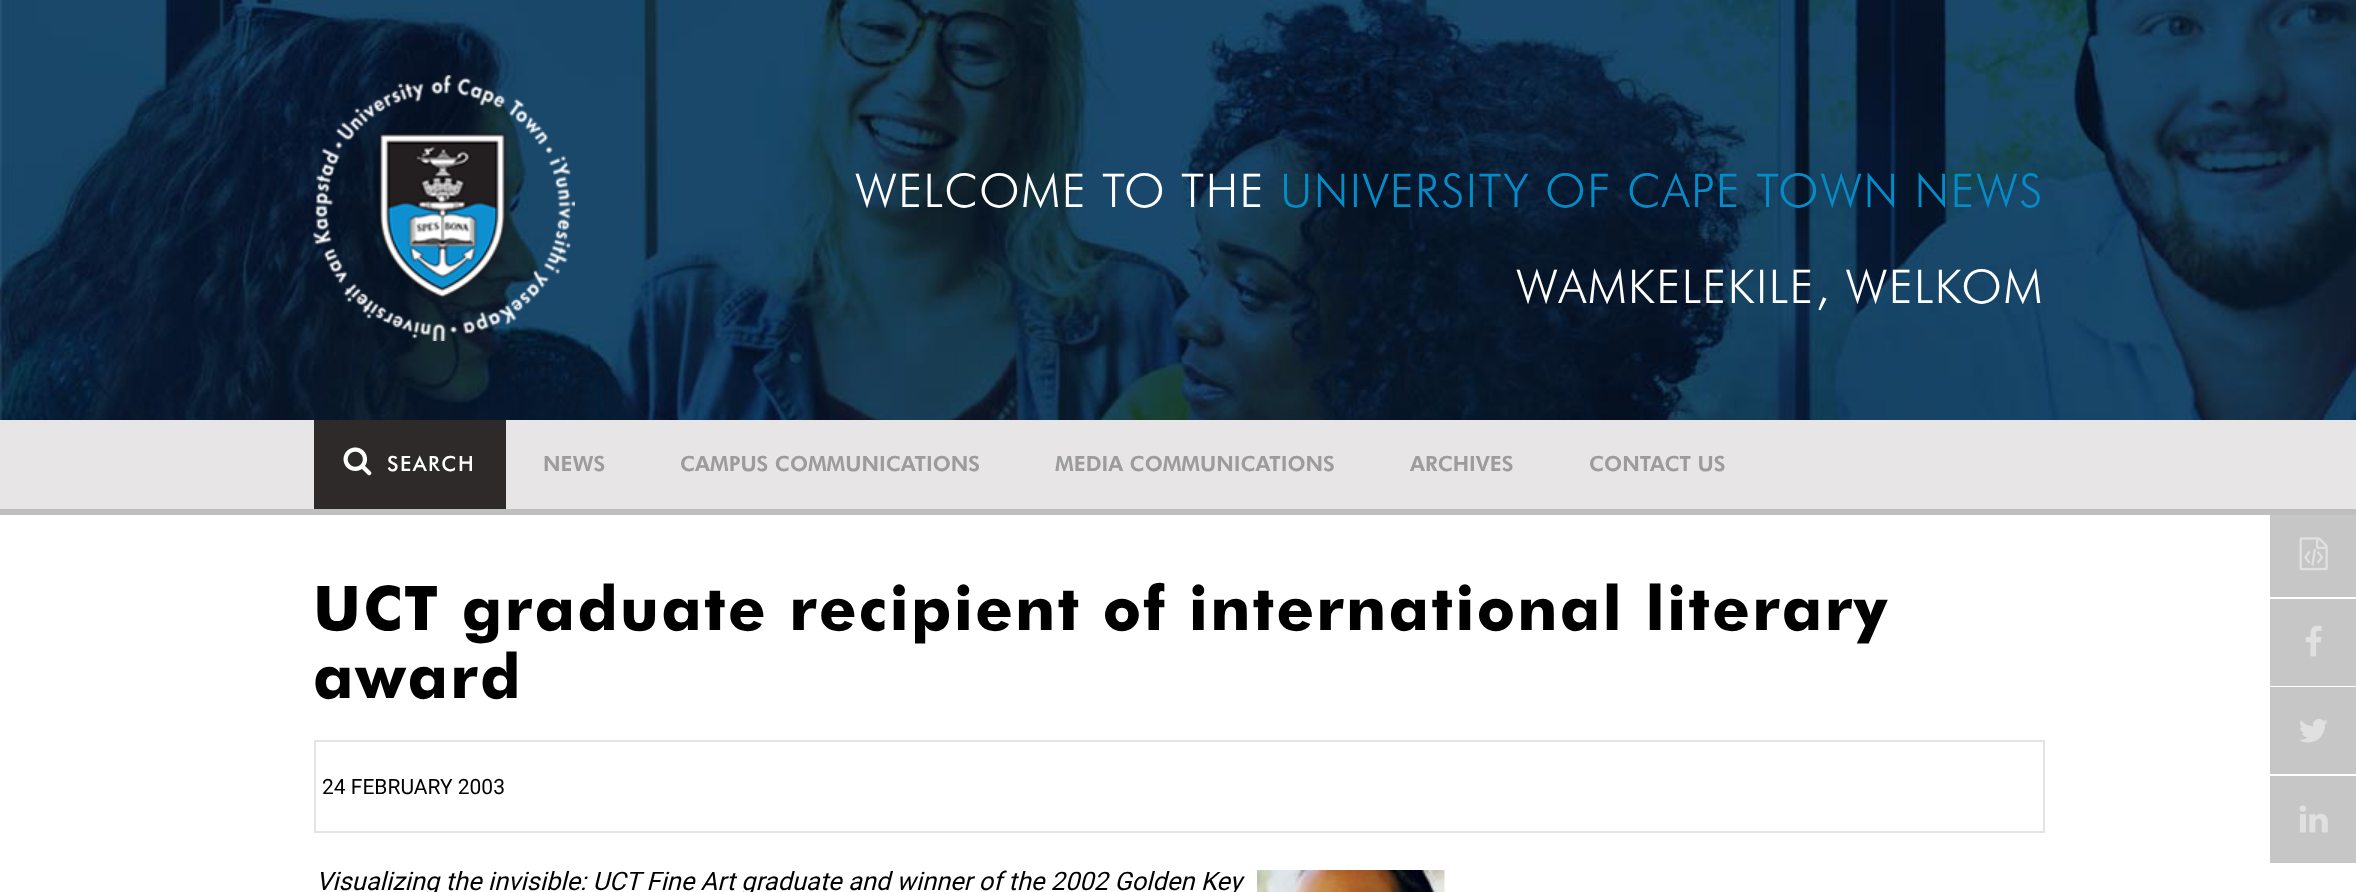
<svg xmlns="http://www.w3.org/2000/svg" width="2356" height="892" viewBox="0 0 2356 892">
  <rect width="100%" height="100%" fill="rgb(255,255,255)"/>
  <image x="0" y="0" width="2356" height="420" href="pic1.png"/>
  <image x="313" y="75" width="262" height="266" href="pic2.png"/>
  <text x="855" y="207" font-family="Futura" font-size="46.5" font-weight="300" letter-spacing="1.5" fill="rgb(255,255,255)">WELCOME TO THE</text>
  <text x="1280" y="207" font-family="Futura" font-size="46.5" font-weight="300" letter-spacing="1.5" fill="rgb(6,139,198)">UNIVERSITY OF CAPE TOWN NEWS</text>
  <text x="1516" y="303" font-family="Futura" font-size="46.5" font-weight="300" letter-spacing="1.5" fill="rgb(255,255,255)">WAMKELEKILE, WELKOM</text>
  <rect x="0" y="420" width="2356" height="89" fill="rgb(231,229,229)"/>
  <rect x="314" y="420" width="192" height="89" fill="rgb(46,42,42)"/>
  <image x="343" y="447" width="29" height="29" href="pic3.png"/>
  <text x="387" y="471" font-family="Futura" font-size="21" font-weight="500" letter-spacing="1.5" fill="rgb(255,255,255)">SEARCH</text>
  <g font-family="Futura" font-size="21" font-weight="900" fill="rgb(156,156,156)">
    <text x="543" y="471">NEWS</text>
    <text x="680" y="471">CAMPUS COMMUNICATIONS</text>
    <text x="1055" y="471">MEDIA COMMUNICATIONS</text>
    <text x="1410" y="471">ARCHIVES</text>
    <text x="1589" y="471">CONTACT US</text>
  </g>
  <rect x="0" y="509" width="2356" height="6" fill="rgb(191,191,191)"/>
  <g font-family="Futura" font-size="61.5" font-weight="bold" letter-spacing="2.25" fill="rgb(0,0,0)">
    <text>
      <tspan x="313" y="630">UCT graduate recipient of international literary</tspan>
      <tspan x="313" y="698">award</tspan>
    </text>
  </g>
  <rect x="315" y="741" width="1729" height="91" fill="none" stroke="rgb(228,228,228)" stroke-width="2"/>
  <text x="322" y="794" font-family="Roboto" font-size="21" fill="rgb(0,0,0)">24 FEBRUARY 2003</text>
  <text x="316" y="890" font-family="Roboto" font-size="25.5" font-style="italic" fill="rgb(0,0,0)">Visualizing the invisible: UCT Fine Art graduate and winner of the 2002 Golden Key</text>
  <image x="1257" y="870" width="188" height="22" href="pic4.png"/>
  <rect x="2270" y="515" width="86" height="82" fill="rgb(198,198,198)"/>
  <image x="2299" y="537" width="29" height="34" href="pic5.png"/>
  <rect x="2270" y="599" width="86" height="87" fill="rgb(198,198,198)"/>
  <image x="2305" y="625" width="17" height="32" href="pic6.png"/>
  <rect x="2270" y="687" width="86" height="87" fill="rgb(198,198,198)"/>
  <image x="2299" y="719" width="29" height="24" href="pic7.png"/>
  <rect x="2270" y="776" width="86" height="87" fill="rgb(198,198,198)"/>
  <image x="2299" y="805" width="29" height="28" href="pic8.png"/>
</svg>
